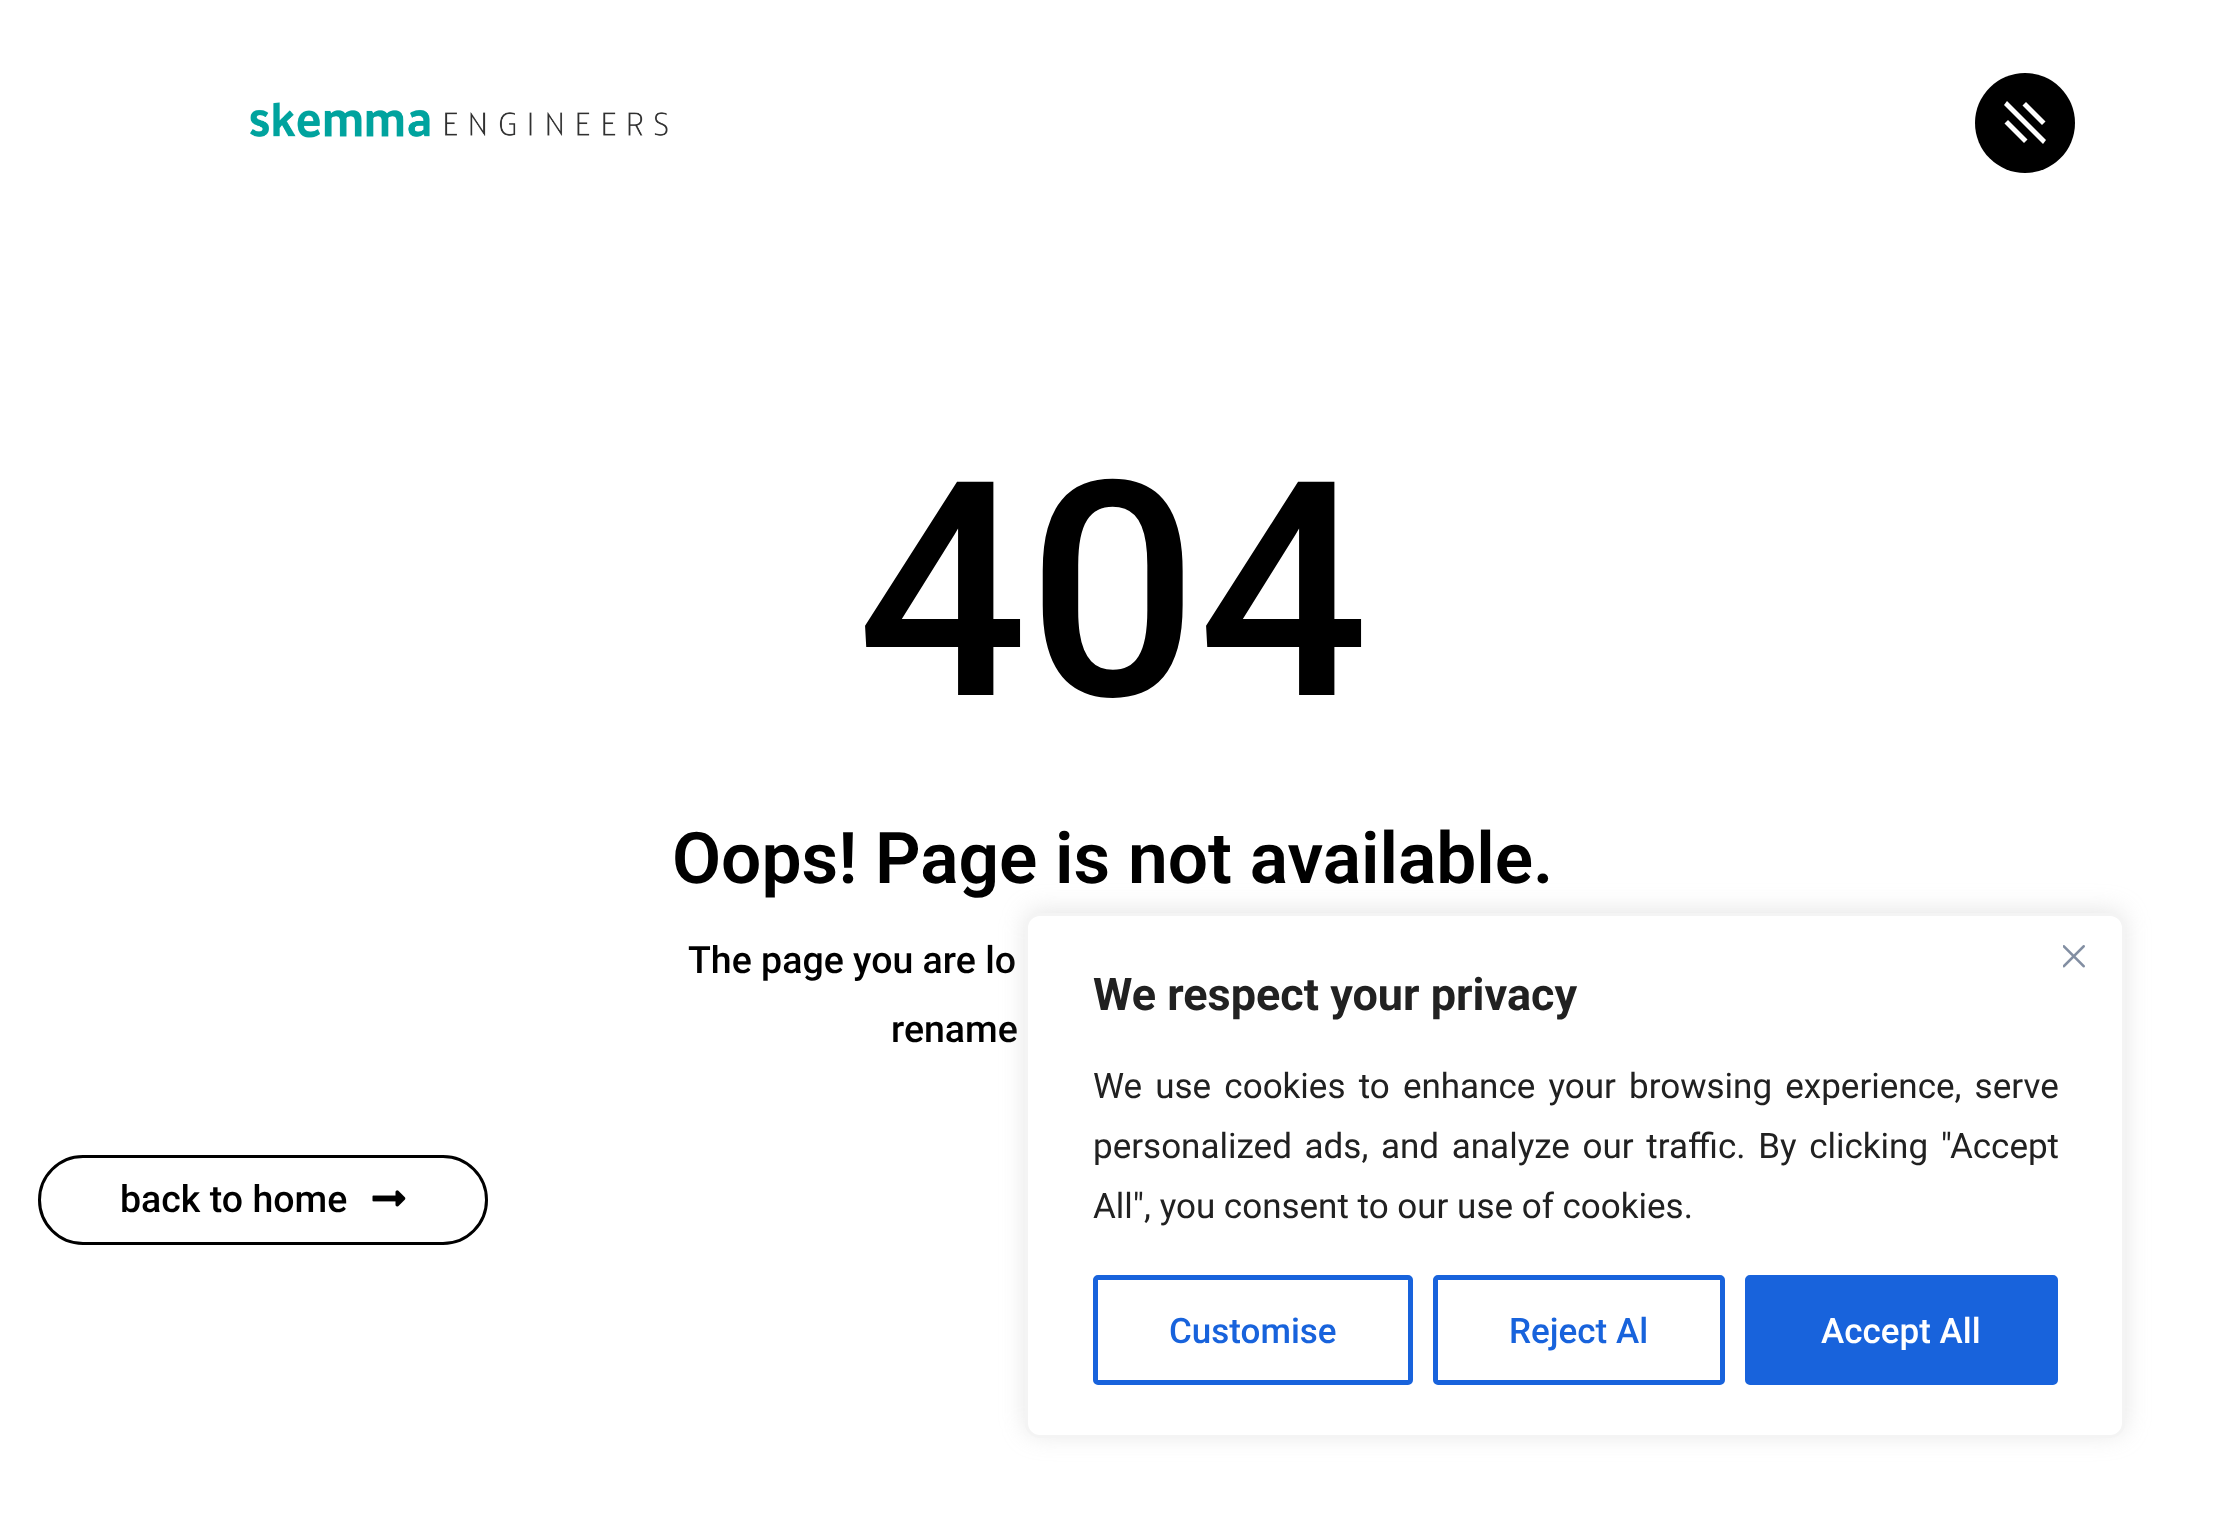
<svg xmlns="http://www.w3.org/2000/svg" width="2225" height="1537" viewBox="0 0 2225 1537">
  <rect width="100%" height="100%" fill="rgb(255,255,255)"/>
  <image x="250" y="102" width="418" height="36" href="pic1.png"/>
  <circle cx="2025" cy="123" r="50" fill="rgb(0,0,0)"/>
  <path d="M2026 102L2045.5 121.5L2042 125L2022.5 105.5Z" fill="rgb(255,255,255)"/>
  <path d="M2007 101L2046 140L2043 144L2004 105Z" fill="rgb(255,255,255)"/>
  <path d="M2008 120L2027.5 139.5L2024 143L2004.5 123.5Z" fill="rgb(255,255,255)"/>
  <text x="857" y="695" font-family="Roboto" font-size="300" font-weight="500" fill="rgb(0,0,0)">404</text>
  <text x="672" y="883" font-family="Roboto" font-size="71.25" font-weight="600" fill="rgb(0,0,0)">Oops! Page is not available.</text>
  <g font-family="Roboto" font-size="37.5" font-weight="500" fill="rgb(0,0,0)">
    <text x="688" y="973">The page you are lo</text>
    <text x="891" y="1042">rename</text>
  </g>
  <rect x="39.5" y="1156.5" width="447" height="87" rx="43.5" fill="none" stroke="rgb(0,0,0)" stroke-width="3"/>
  <text x="120" y="1212" font-family="Roboto" font-size="37.5" font-weight="500" fill="rgb(0,0,0)">back to home</text>
  <image x="372" y="1190" width="34" height="17" href="pic2.png"/>
  <rect x="1025" y="910" width="1100" height="525" rx="15" fill="rgba(172,171,171,0.3)" filter="blur(12.5px)"/>
  <rect x="1026.5" y="914.5" width="1097" height="522" rx="13.5" fill="rgb(255,255,255)" stroke="rgb(244,244,244)" stroke-width="3"/>
  <image x="2063" y="945" width="22" height="23" href="pic3.png"/>
  <text x="1093" y="1010" font-family="Roboto" font-size="45" font-weight="bold" fill="rgb(33,33,33)">We respect your privacy</text>
  <g font-family="Roboto" font-size="35" fill="rgb(33,33,33)">
    <text>
      <tspan x="1093" y="1098" word-spacing="4.5">We use cookies to enhance your browsing experience, serve</tspan>
      <tspan x="1093" y="1158" word-spacing="4">personalized ads, and analyze our traffic. By clicking "Accept</tspan>
      <tspan x="1093" y="1218">All", you consent to our use of cookies.</tspan>
    </text>
  </g>
  <rect x="1095.5" y="1277.5" width="315" height="105" rx="2.5" fill="none" stroke="rgb(24,99,220)" stroke-width="5"/>
  <text x="1169" y="1343" font-family="Roboto" font-size="35" font-weight="500" fill="rgb(24,99,220)">Customise</text>
  <rect x="1435.5" y="1277.5" width="287" height="105" rx="2.5" fill="none" stroke="rgb(24,99,220)" stroke-width="5"/>
  <text x="1509" y="1343" font-family="Roboto" font-size="35" font-weight="500" fill="rgb(24,99,220)">Reject Al</text>
  <rect x="1747.5" y="1277.5" width="308" height="105" rx="2.5" fill="rgb(24,99,220)" stroke="rgb(24,99,220)" stroke-width="5"/>
  <text x="1821" y="1343" font-family="Roboto" font-size="35" font-weight="500" fill="rgb(255,255,255)">Accept All</text>
</svg>
